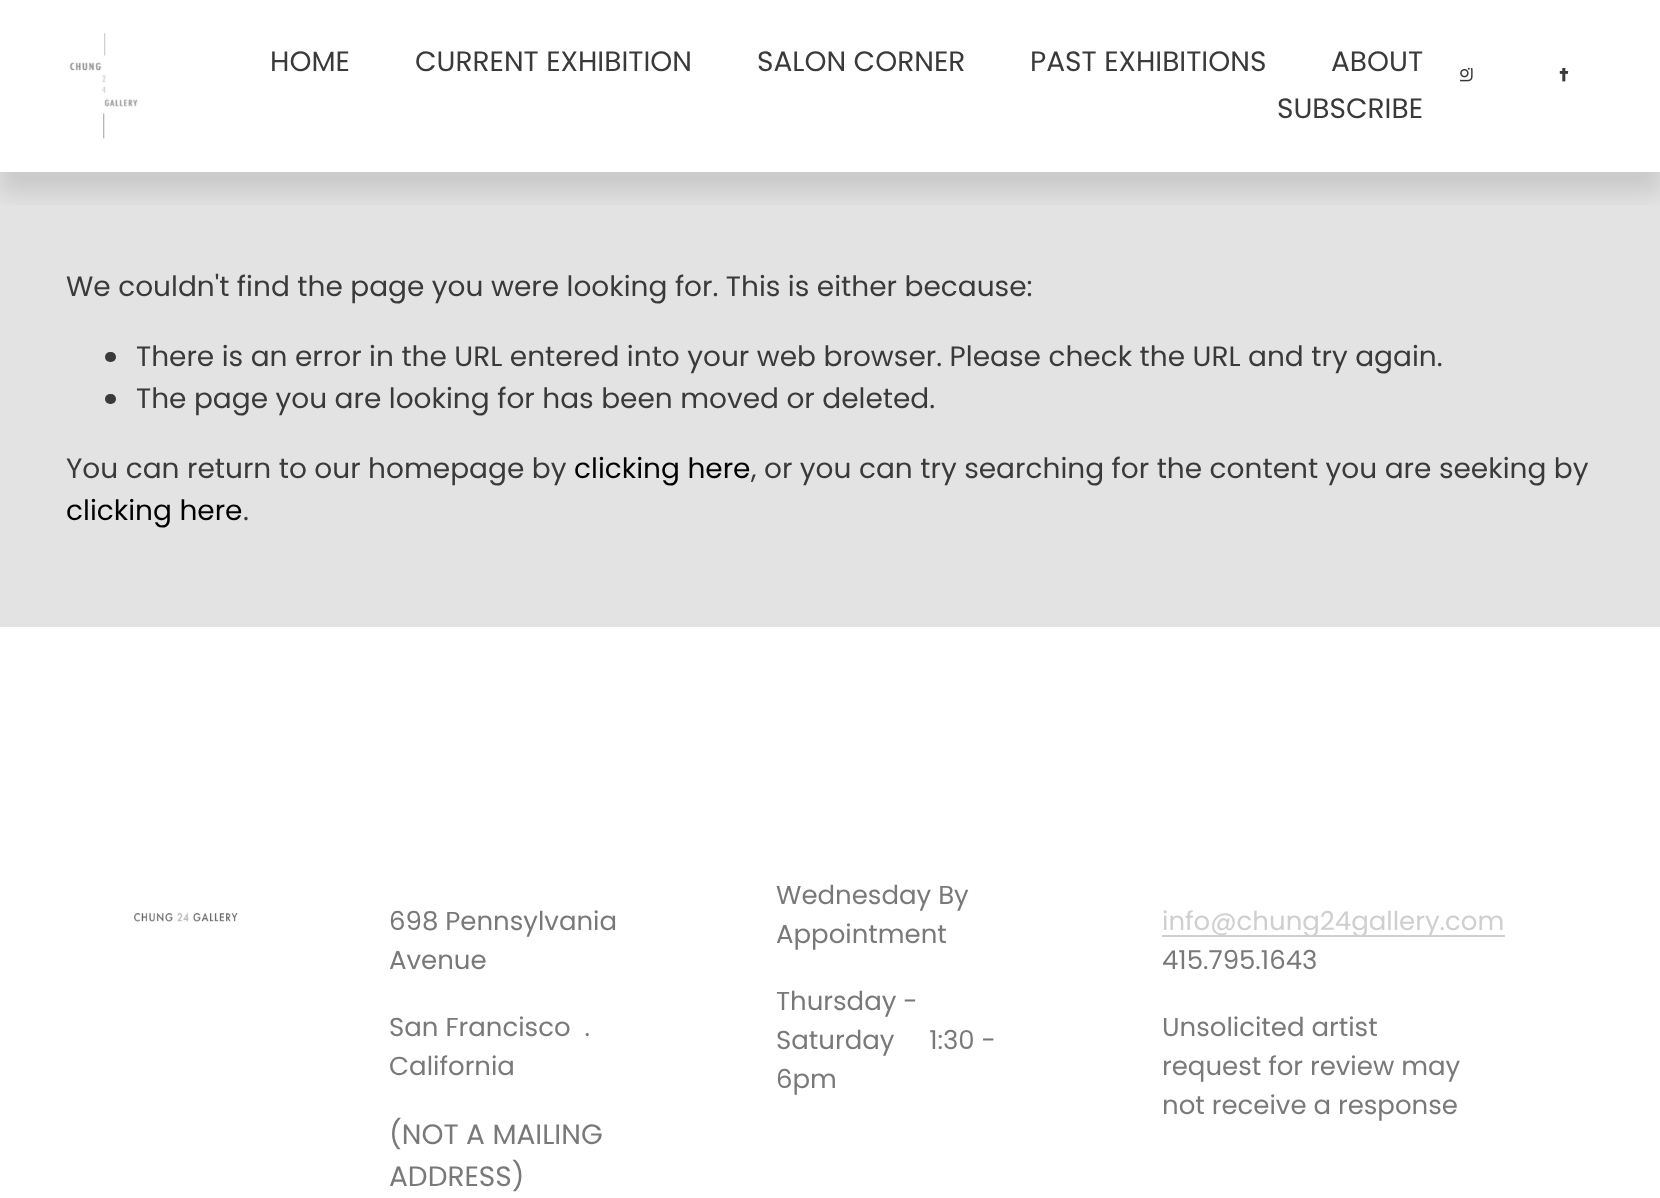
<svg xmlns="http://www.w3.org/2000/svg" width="1660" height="1198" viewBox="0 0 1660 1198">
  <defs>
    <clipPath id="clip1"><rect x="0" y="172" width="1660" height="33"/></clipPath>
  </defs>
  <rect width="100%" height="100%" fill="rgb(227,227,227)"/>
  <rect x="2" y="2" width="1657" height="168" fill="rgb(255,255,255)"/>
  <g clip-path="url(#clip1)">
    <rect x="0" y="21" width="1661" height="172" fill="rgba(58,58,58,0.15)" filter="blur(10.5px)"/>
  </g>
  <rect x="1" y="1" width="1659" height="170" fill="none" stroke="rgb(255,255,255)" stroke-width="2"/>
  <image x="69" y="33" width="69" height="106" href="pic1.png"/>
  <g font-family="Poppins" font-size="28" fill="rgb(58,58,58)">
    <text x="270" y="71">HOME</text>
    <text x="415" y="71">CURRENT EXHIBITION</text>
    <text x="757" y="71">SALON CORNER</text>
    <text x="1030" y="71">PAST EXHIBITIONS</text>
    <text x="1331" y="71">ABOUT</text>
    <text x="1277" y="118">SUBSCRIBE</text>
  </g>
  <image x="1460" y="68" width="13" height="14" href="pic2.png"/>
  <image x="1559" y="68" width="10" height="14" href="pic3.png"/>
  <text x="66" y="296" font-family="Poppins" font-size="28" fill="rgb(58,58,58)">We couldn't find the page you were looking for. This is either because:</text>
  <rect x="105" y="352" width="11" height="10" rx="5" fill="rgb(58,58,58)"/>
  <text x="136" y="366" font-family="Poppins" font-size="28" fill="rgb(58,58,58)">There is an error in the URL entered into your web browser. Please check the URL and try again.</text>
  <rect x="105" y="394" width="11" height="10" rx="5" fill="rgb(58,58,58)"/>
  <g font-family="Poppins" font-size="28" fill="rgb(58,58,58)">
    <text x="136" y="408">The page you are looking for has been moved or deleted.</text>
    <text x="66" y="478">You can return to our homepage by</text>
  </g>
  <text x="574" y="478" font-family="Poppins" font-size="28" fill="rgb(0,0,0)">clicking here</text>
  <text x="751" y="478" font-family="Poppins" font-size="28" fill="rgb(58,58,58)">, or you can try searching for the content you are seeking by</text>
  <text x="66" y="520" font-family="Poppins" font-size="28" fill="rgb(0,0,0)">clicking here</text>
  <text x="243" y="520" font-family="Poppins" font-size="28" fill="rgb(58,58,58)">.</text>
  <rect x="0" y="627" width="1660" height="571" fill="rgb(255,255,255)"/>
  <image x="134" y="912" width="104" height="10" href="pic4.png"/>
  <g font-family="Poppins" font-size="26" fill="rgb(121,121,121)">
    <text>
      <tspan x="389" y="930">698 Pennsylvania</tspan>
      <tspan x="389" y="969">Avenue</tspan>
    </text>
    <text xml:space="preserve"><tspan x="389" y="1036">San Francisco  .</tspan><tspan x="389" y="1075">California</tspan></text>
  </g>
  <g font-family="Poppins" font-size="28" fill="rgb(121,121,121)">
    <text>
      <tspan x="389" y="1144">(NOT A MAILING</tspan>
      <tspan x="389" y="1186">ADDRESS)</tspan>
    </text>
  </g>
  <g font-family="Poppins" font-size="26" fill="rgb(121,121,121)">
    <text>
      <tspan x="776" y="904">Wednesday By</tspan>
      <tspan x="776" y="943">Appointment</tspan>
    </text>
    <text xml:space="preserve"><tspan x="776" y="1010">Thursday -</tspan><tspan x="776" y="1049">Saturday     1:30 -</tspan><tspan x="776" y="1088">6pm</tspan></text>
  </g>
  <rect x="1162" y="935" width="343" height="2" fill="rgb(207,207,207)"/>
  <text x="1162" y="930" font-family="Poppins" font-size="26" fill="rgb(207,207,207)">info@chung24gallery.com</text>
  <g font-family="Poppins" font-size="26" fill="rgb(121,121,121)">
    <text x="1162" y="969">415.795.1643</text>
    <text>
      <tspan x="1162" y="1036">Unsolicited artist</tspan>
      <tspan x="1162" y="1075">request for review may</tspan>
      <tspan x="1162" y="1114">not receive a response</tspan>
    </text>
  </g>
</svg>
